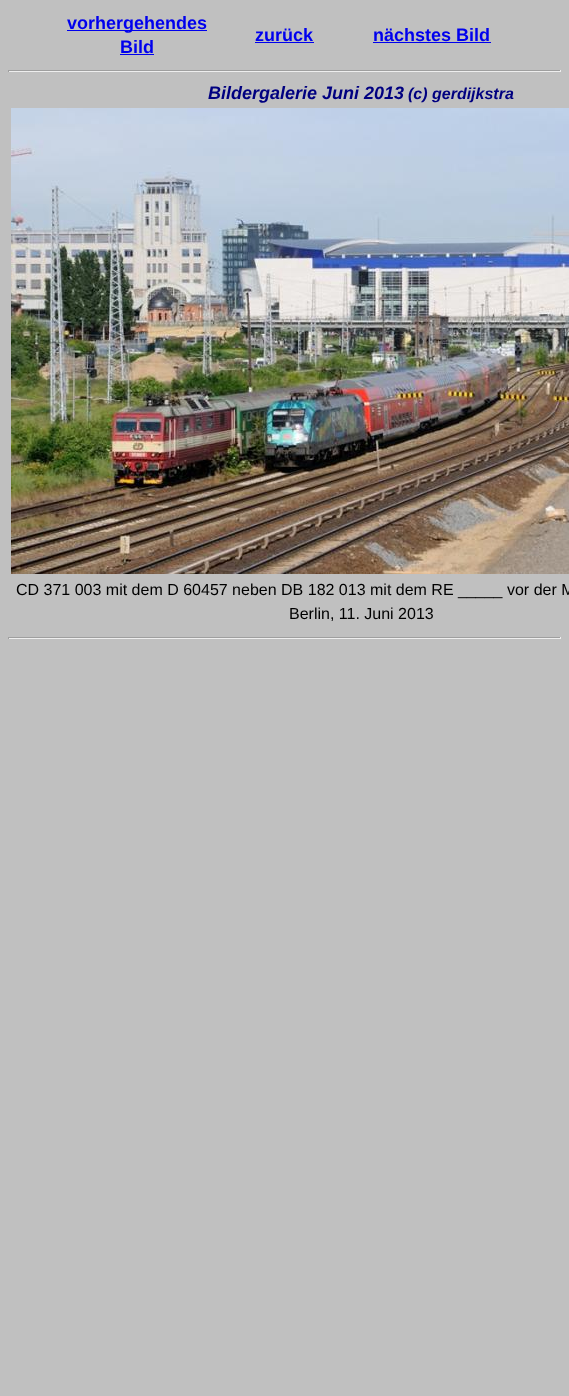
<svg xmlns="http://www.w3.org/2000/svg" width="569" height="1396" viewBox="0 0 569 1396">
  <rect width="100%" height="100%" fill="rgb(192,192,192)"/>
  <rect x="67" y="30" width="140" height="1" fill="rgb(0,0,238)"/>
  <g font-family="Liberation Sans" font-size="18" font-weight="bold" fill="rgb(0,0,238)">
    <text x="67" y="29">vorhergehendes</text>
    <text x="120" y="53">Bild</text>
  </g>
  <rect x="120" y="54" width="34" height="1" fill="rgb(0,0,238)"/>
  <text x="255" y="41" font-family="Liberation Sans" font-size="18" font-weight="bold" fill="rgb(0,0,238)">zurück</text>
  <rect x="255" y="42" width="59" height="1" fill="rgb(0,0,238)"/>
  <text x="373" y="41" font-family="Liberation Sans" font-size="18" font-weight="bold" fill="rgb(0,0,238)">nächstes Bild</text>
  <rect x="373" y="42" width="118" height="1" fill="rgb(0,0,238)"/>
  <rect x="8" y="70" width="553" height="1" fill="rgb(159,159,159)"/>
  <rect x="560" y="70" width="1" height="2" fill="rgb(238,238,238)"/>
  <rect x="8" y="71" width="553" height="1" fill="rgb(238,238,238)"/>
  <rect x="8" y="70" width="1" height="2" fill="rgb(159,159,159)"/>
  <text x="208" y="99" font-family="Liberation Sans" font-size="18" font-weight="bold" font-style="italic" fill="rgb(0,0,128)">Bildergalerie Juni 2013</text>
  <text x="408" y="99" font-family="Liberation Sans" font-size="16" font-weight="bold" font-style="italic" fill="rgb(0,0,128)">(c) gerdijkstra</text>
  <image x="11" y="108" width="558" height="466" href="pic1.png"/>
  <g font-family="Liberation Sans" font-size="16" fill="rgb(0,0,0)">
    <text x="16" y="595">CD 371 003 mit dem D 60457 neben DB 182 013 mit dem RE _____ vor der M</text>
    <text x="289" y="619">Berlin, 11. Juni 2013</text>
  </g>
  <rect x="8" y="637" width="553" height="1" fill="rgb(159,159,159)"/>
  <rect x="560" y="637" width="1" height="2" fill="rgb(238,238,238)"/>
  <rect x="8" y="638" width="553" height="1" fill="rgb(238,238,238)"/>
  <rect x="8" y="637" width="1" height="2" fill="rgb(159,159,159)"/>
</svg>
